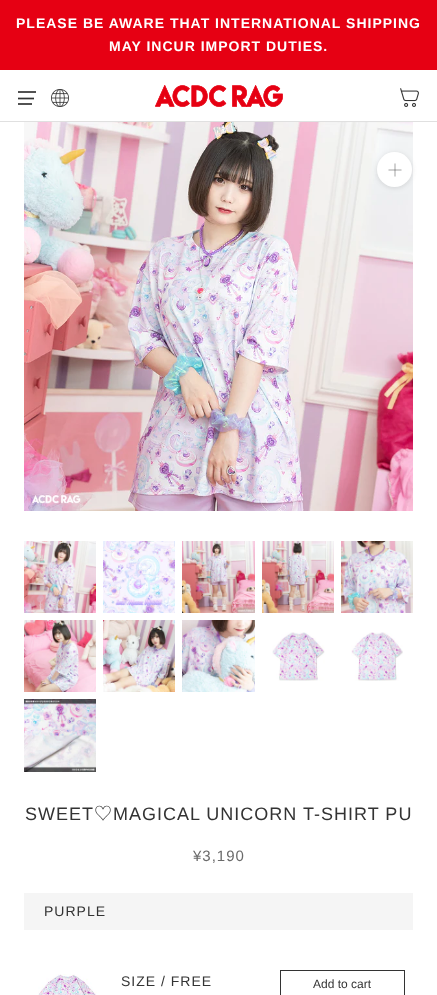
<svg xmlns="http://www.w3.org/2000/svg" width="437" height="995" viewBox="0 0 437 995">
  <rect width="100%" height="100%" fill="rgb(255,255,255)"/>
  <rect x="0" y="0" width="437" height="70" fill="rgb(230,0,19)"/>
  <g font-family="Liberation Sans" font-size="14" font-weight="bold" letter-spacing="1" fill="rgb(255,255,255)">
    <text x="16" y="28">PLEASE BE AWARE THAT INTERNATIONAL SHIPPING</text>
    <text x="109" y="51">MAY INCUR IMPORT DUTIES.</text>
  </g>
  <rect x="0" y="121" width="437" height="1" fill="rgb(224,224,224)"/>
  <rect x="18" y="91" width="18" height="2" fill="rgb(82,82,82)"/>
  <path d="M34 98.5H18" fill="none" stroke="rgb(51,51,51)" stroke-width="1.7"/>
  <rect x="18" y="103" width="14" height="2" fill="rgb(82,82,82)"/>
  <image x="51" y="89" width="18" height="18" href="pic1.png"/>
  <image x="155" y="85" width="128" height="22" href="pic2.png"/>
  <image x="400" y="88" width="19" height="19" href="pic3.png"/>
  <image x="24" y="122" width="389" height="389" href="pic4.png"/>
  <rect x="377" y="153" width="35" height="35" rx="17.5" fill="rgba(54,54,54,0.15)" filter="blur(2.5px)"/>
  <circle cx="394.5" cy="169.5" r="17.5" fill="rgb(255,255,255)"/>
  <path d="M395 164V176" fill="none" stroke="rgb(153,153,153)" stroke-width="0.9" stroke-linecap="square"/>
  <path d="M389 170H401" fill="none" stroke="rgba(51,51,51,0.5)" stroke-width="0.9" stroke-linecap="square"/>
  <image x="24" y="541" width="72" height="72" href="pic5.png"/>
  <image x="103" y="541" width="72" height="72" href="pic6.png"/>
  <image x="182" y="541" width="73" height="72" href="pic7.png"/>
  <image x="262" y="541" width="72" height="72" href="pic8.png"/>
  <image x="341" y="541" width="72" height="72" href="pic9.png"/>
  <image x="24" y="620" width="72" height="72" href="pic10.png"/>
  <image x="103" y="620" width="72" height="72" href="pic11.png"/>
  <image x="182" y="620" width="73" height="72" href="pic12.png"/>
  <image x="272" y="632" width="53" height="49" href="pic13.png"/>
  <image x="351" y="632" width="52" height="49" href="pic14.png"/>
  <image x="24" y="699" width="72" height="73" href="pic15.png"/>
  <text x="25" y="820" font-family="Liberation Sans" font-size="18" letter-spacing="1" fill="rgb(51,51,51)">SWEET</text>
  <text x="94" y="820" font-family="Noto Sans JP" font-size="18" font-weight="100" letter-spacing="1" fill="rgb(51,51,51)">♡</text>
  <text x="113" y="820" font-family="Liberation Sans" font-size="18" letter-spacing="1" fill="rgb(51,51,51)">MAGICAL UNICORN T-SHIRT PU</text>
  <text x="193" y="861" font-family="Liberation Sans" font-size="15" letter-spacing="1" fill="rgb(106,106,106)">¥3,190</text>
  <rect x="24" y="893" width="389" height="37" fill="rgb(245,245,245)"/>
  <text x="44" y="916" font-family="Liberation Sans" font-size="14" letter-spacing="1" fill="rgb(51,51,51)">PURPLE</text>
  <image x="38" y="974" width="59" height="21" href="pic16.png"/>
  <text x="121" y="986" font-family="Liberation Sans" font-size="14" letter-spacing="1" fill="rgb(51,51,51)">SIZE / FREE</text>
  <rect x="280.5" y="970.5" width="124" height="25" fill="none" stroke="rgb(51,51,51)"/>
  <text x="313" y="988" font-family="Liberation Sans" font-size="12" fill="rgb(51,51,51)">Add to cart</text>
</svg>
